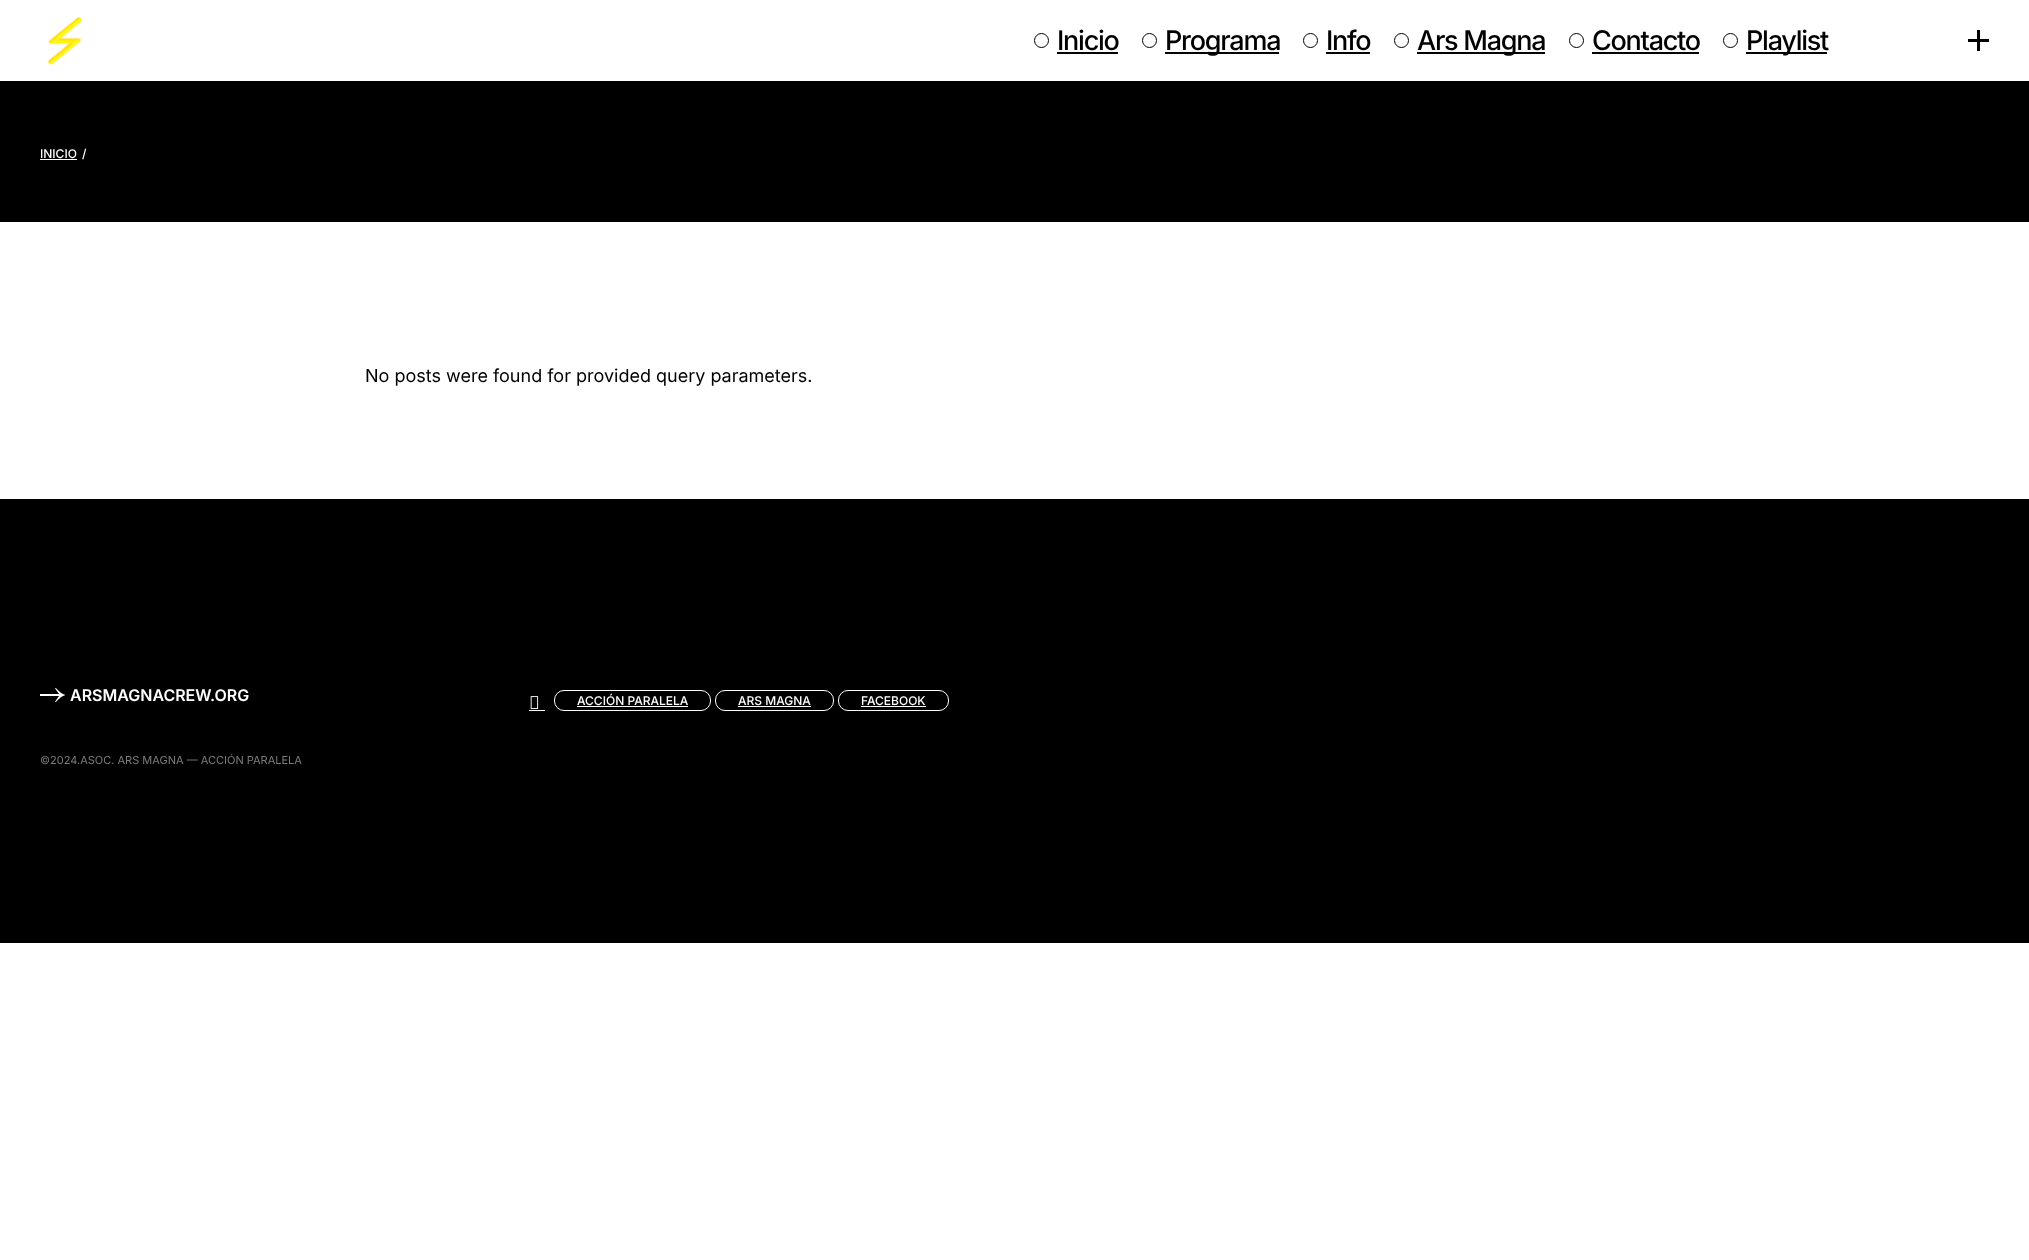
<svg xmlns="http://www.w3.org/2000/svg" width="2029" height="1260" viewBox="0 0 2029 1260">
  <rect width="100%" height="100%" fill="rgb(255,255,255)"/>
  <image x="48" y="17" width="34" height="48" href="pic1.png"/>
  <circle cx="1041.5" cy="40.5" r="7" fill="none" stroke="rgb(0,0,0)"/>
  <text x="1057" y="50" font-family="Inter" font-size="27" font-weight="500" letter-spacing="-1.25" fill="rgb(0,0,0)">Inicio</text>
  <rect x="1057" y="52" width="61" height="2" fill="rgb(0,0,0)"/>
  <circle cx="1149.5" cy="40.5" r="7" fill="none" stroke="rgb(0,0,0)"/>
  <rect x="1165" y="52" width="114" height="2" fill="rgb(0,0,0)"/>
  <text x="1165" y="50" font-family="Inter" font-size="27" font-weight="500" letter-spacing="-1.25" fill="rgb(0,0,0)">Programa</text>
  <circle cx="1310.5" cy="40.5" r="7" fill="none" stroke="rgb(0,0,0)"/>
  <text x="1326" y="50" font-family="Inter" font-size="27" font-weight="500" letter-spacing="-1.25" fill="rgb(0,0,0)">Info</text>
  <rect x="1326" y="52" width="44" height="2" fill="rgb(0,0,0)"/>
  <circle cx="1401.5" cy="40.5" r="7" fill="none" stroke="rgb(0,0,0)"/>
  <rect x="1417" y="52" width="128" height="2" fill="rgb(0,0,0)"/>
  <text x="1417" y="50" font-family="Inter" font-size="27" font-weight="500" letter-spacing="-1.25" fill="rgb(0,0,0)">Ars Magna</text>
  <circle cx="1576.5" cy="40.5" r="7" fill="none" stroke="rgb(0,0,0)"/>
  <text x="1592" y="50" font-family="Inter" font-size="27" font-weight="500" letter-spacing="-1.25" fill="rgb(0,0,0)">Contacto</text>
  <rect x="1592" y="52" width="107" height="2" fill="rgb(0,0,0)"/>
  <circle cx="1730.5" cy="40.5" r="7" fill="none" stroke="rgb(0,0,0)"/>
  <rect x="1746" y="52" width="81" height="2" fill="rgb(0,0,0)"/>
  <text x="1746" y="50" font-family="Inter" font-size="27" font-weight="500" letter-spacing="-1.25" fill="rgb(0,0,0)">Playlist</text>
  <rect x="1968" y="39" width="21" height="3" fill="rgb(0,0,0)"/>
  <rect x="1977" y="30" width="3" height="21" fill="rgb(0,0,0)"/>
  <rect x="0" y="81" width="2029" height="141" fill="rgb(0,0,0)"/>
  <text x="40" y="158" font-family="Inter" font-size="12" font-weight="500" fill="rgb(255,255,255)">INICIO</text>
  <rect x="40" y="159" width="37" height="1" fill="rgb(255,255,255)"/>
  <text x="82" y="158" font-family="Inter" font-size="12" font-weight="500" fill="rgb(255,255,255)">/</text>
  <text x="365" y="382" font-family="Inter" font-size="18" fill="rgb(0,0,0)">No posts were found for provided query parameters.</text>
  <rect x="0" y="499" width="2029" height="444" fill="rgb(0,0,0)"/>
  <image x="40" y="688" width="25" height="14" href="pic2.png"/>
  <text x="70" y="701" font-family="Inter" font-size="16" font-weight="600" fill="rgb(255,255,255)">ARSMAGNACREW.ORG</text>
  <text x="40" y="764" font-family="Inter" font-size="11" fill="rgb(124,124,124)">©2024.ASOC. ARS MAGNA — ACCIÓN PARALELA</text>
  <rect x="529" y="710" width="16" height="1" fill="rgb(255,255,255)"/>
  <image x="530" y="696" width="9" height="13" href="pic3.png"/>
  <rect x="554.5" y="690.5" width="156" height="20" rx="9.5" fill="none" stroke="rgb(255,255,255)"/>
  <text x="577" y="705" font-family="Inter" font-size="12" font-weight="500" fill="rgb(255,255,255)">ACCIÓN PARALELA</text>
  <rect x="577" y="706" width="111" height="1" fill="rgb(255,255,255)"/>
  <rect x="715.5" y="690.5" width="118" height="20" rx="9.5" fill="none" stroke="rgb(255,255,255)"/>
  <text x="738" y="705" font-family="Inter" font-size="12" font-weight="500" fill="rgb(255,255,255)">ARS MAGNA</text>
  <rect x="738" y="706" width="73" height="1" fill="rgb(255,255,255)"/>
  <rect x="838.5" y="690.5" width="110" height="20" rx="9.5" fill="none" stroke="rgb(255,255,255)"/>
  <text x="861" y="705" font-family="Inter" font-size="12" font-weight="500" fill="rgb(255,255,255)">FACEBOOK</text>
  <rect x="861" y="706" width="65" height="1" fill="rgb(255,255,255)"/>
</svg>
